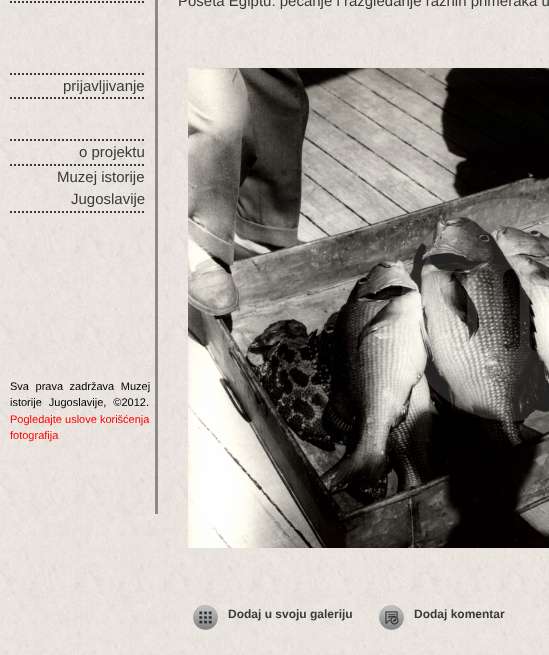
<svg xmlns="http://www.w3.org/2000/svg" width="549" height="655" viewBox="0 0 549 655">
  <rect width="100%" height="100%" fill="rgb(255,255,255)"/>
  <image x="0" y="0" width="549" height="655" href="pic1.png"/>
  <rect x="155" y="0" width="3" height="514" fill="rgba(0,0,0,0.4)"/>
  <path d="M10 2H145" fill="none" stroke="rgb(57,58,57)" stroke-width="2" stroke-dasharray="2 2"/>
  <path d="M10 74H145" fill="none" stroke="rgb(57,58,57)" stroke-width="2" stroke-dasharray="2 2"/>
  <path d="M10 98H145" fill="none" stroke="rgb(57,58,57)" stroke-width="2" stroke-dasharray="2 2"/>
  <text x="63" y="91" font-family="Liberation Sans" font-size="15" fill="rgb(57,58,57)">prijavljivanje</text>
  <path d="M10 140H145" fill="none" stroke="rgb(57,58,57)" stroke-width="2" stroke-dasharray="2 2"/>
  <path d="M10 165H145" fill="none" stroke="rgb(57,58,57)" stroke-width="2" stroke-dasharray="2 2"/>
  <text x="79" y="157" font-family="Liberation Sans" font-size="15" fill="rgb(57,58,57)">o projektu</text>
  <path d="M10 212H145" fill="none" stroke="rgb(57,58,57)" stroke-width="2" stroke-dasharray="2 2"/>
  <g font-family="Liberation Sans" font-size="15" fill="rgb(57,58,57)">
    <text x="57" y="182">Muzej istorije</text>
    <text x="71" y="204">Jugoslavije</text>
  </g>
  <g font-family="Liberation Sans" font-size="11" fill="rgb(0,0,0)">
    <text>
      <tspan x="10" y="390" word-spacing="3.5">Sva prava zadržava Muzej</tspan>
      <tspan x="10" y="406" word-spacing="4">istorije Jugoslavije, ©2012.</tspan>
    </text>
  </g>
  <g font-family="Liberation Sans" font-size="11" fill="rgb(255,0,0)">
    <text>
      <tspan x="10" y="423">Pogledajte uslove korišćenja</tspan>
      <tspan x="10" y="439">fotografija</tspan>
    </text>
  </g>
  <text x="178" y="6" font-family="Liberation Sans" font-size="15" fill="rgb(57,58,57)">Poseta Egiptu: pecanje i razgledanje raznih primeraka u</text>
  <image x="188" y="68" width="361" height="480" href="pic2.png"/>
  <image x="193" y="605" width="25" height="25" href="pic3.png"/>
  <text x="228" y="618" font-family="Liberation Sans" font-size="12" font-weight="bold" fill="rgb(57,58,57)">Dodaj u svoju galeriju</text>
  <image x="379" y="605" width="25" height="25" href="pic4.png"/>
  <text x="414" y="618" font-family="Liberation Sans" font-size="12" font-weight="bold" fill="rgb(57,58,57)">Dodaj komentar</text>
</svg>
